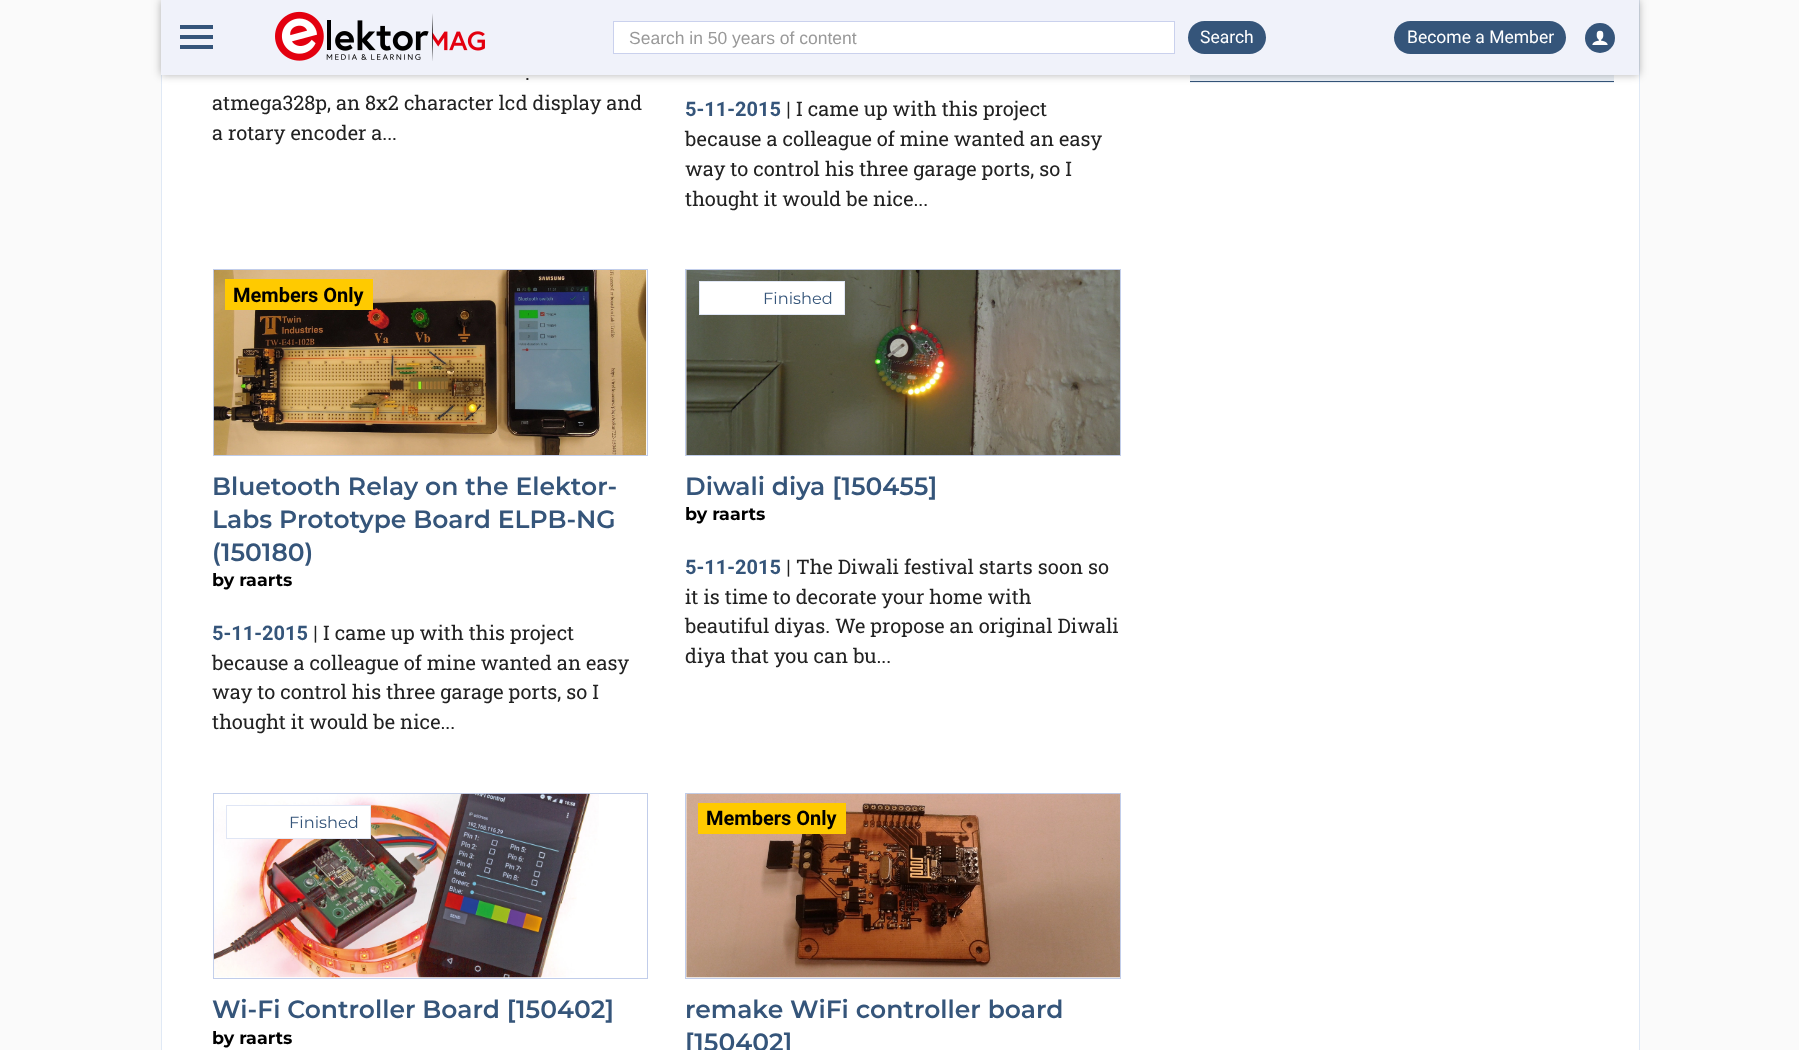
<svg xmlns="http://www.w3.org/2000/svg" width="1799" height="1050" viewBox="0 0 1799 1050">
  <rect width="100%" height="100%" fill="rgb(250,250,250)"/>
  <rect x="162" y="75" width="1477" height="975" fill="rgb(255,255,255)"/>
  <rect x="1639" y="0" width="1" height="1050" fill="rgb(224,233,245)"/>
  <rect x="161" y="75" width="1" height="975" fill="rgb(224,233,245)"/>
  <rect x="1190" y="75" width="424" height="8" fill="rgb(235,240,246)"/>
  <rect x="1190" y="81" width="424" height="1" fill="rgb(53,85,122)"/>
  <rect x="161" y="0" width="1478" height="75" fill="rgba(0,0,0,0.3)" filter="blur(4px)"/>
  <rect x="161" y="0" width="1478" height="75" fill="rgb(240,242,250)"/>
  <rect x="180" y="25" width="33" height="4" fill="rgb(53,85,122)"/>
  <rect x="180" y="35" width="33" height="4" fill="rgb(53,85,122)"/>
  <rect x="180" y="45" width="33" height="4" fill="rgb(53,85,122)"/>
  <image x="275" y="11" width="210" height="50" href="pic1.png"/>
  <rect x="613.5" y="21.5" width="561" height="32" fill="rgb(255,255,255)" stroke="rgb(202,209,237)"/>
  <text x="629" y="44" font-family="Liberation Sans" font-size="17.5" fill="rgb(153,153,153)">Search in 50 years of content</text>
  <rect x="1188" y="21" width="78" height="33" rx="16.5" fill="rgb(53,85,122)"/>
  <text x="1200" y="43" font-family="Roboto" font-size="17.5" fill="rgb(255,255,255)">Search</text>
  <rect x="1394" y="21" width="172" height="33" rx="16.5" fill="rgb(53,85,122)"/>
  <text x="1407" y="43" font-family="Roboto" font-size="17.5" fill="rgb(255,255,255)">Become a Member</text>
  <circle cx="1600" cy="38" r="15" fill="rgb(53,85,122)"/>
  <image x="1592" y="30" width="16" height="15" href="pic2.png"/>
  <g font-family="Roboto Slab" font-size="20" fill="rgb(34,34,34)">
    <text x="525" y="80">.</text>
    <text>
      <tspan x="212" y="110">atmega328p, an 8x2 character lcd display and</tspan>
      <tspan x="212" y="140">a rotary encoder a...</tspan>
    </text>
  </g>
  <text x="685" y="116" font-family="Roboto" font-size="20" font-weight="bold" fill="rgb(53,85,122)">5-11-2015</text>
  <text x="786" y="116" font-family="Roboto" font-size="20" fill="rgb(34,34,34)">|</text>
  <g font-family="Roboto Slab" font-size="20" fill="rgb(34,34,34)">
    <text x="796" y="116">I came up with this project</text>
    <text>
      <tspan x="685" y="146">because a colleague of mine wanted an easy</tspan>
      <tspan x="685" y="176">way to control his three garage ports, so I</tspan>
      <tspan x="685" y="206">thought it would be nice...</tspan>
    </text>
  </g>
  <rect x="213.5" y="269.5" width="434" height="186" fill="none" stroke="rgb(193,205,234)"/>
  <image x="213" y="270" width="434" height="185" href="pic3.png"/>
  <rect x="225" y="279" width="148" height="31" fill="rgb(255,202,0)"/>
  <text x="233" y="302" font-family="Roboto" font-size="20" font-weight="bold" fill="rgb(0,0,0)">Members Only</text>
  <g font-family="Montserrat" font-size="25" font-weight="600" fill="rgb(53,85,122)">
    <text>
      <tspan x="212" y="495">Bluetooth Relay on the Elektor-</tspan>
      <tspan x="212" y="528">Labs Prototype Board ELPB-NG</tspan>
      <tspan x="212" y="561">(150180)</tspan>
    </text>
  </g>
  <text x="212" y="586" font-family="Montserrat" font-size="17.5" font-weight="bold" fill="rgb(0,0,0)">by raarts</text>
  <text x="212" y="640" font-family="Roboto" font-size="20" font-weight="bold" fill="rgb(53,85,122)">5-11-2015</text>
  <text x="313" y="640" font-family="Roboto" font-size="20" fill="rgb(34,34,34)">|</text>
  <g font-family="Roboto Slab" font-size="20" fill="rgb(34,34,34)">
    <text x="323" y="640">I came up with this project</text>
    <text>
      <tspan x="212" y="670">because a colleague of mine wanted an easy</tspan>
      <tspan x="212" y="699">way to control his three garage ports, so I</tspan>
      <tspan x="212" y="729">thought it would be nice...</tspan>
    </text>
  </g>
  <rect x="685.5" y="269.5" width="435" height="186" fill="none" stroke="rgb(193,205,234)"/>
  <image x="686" y="270" width="434" height="185" href="pic4.png"/>
  <rect x="699.5" y="281.5" width="145" height="33" fill="rgb(255,255,255)" stroke="rgb(224,230,245)"/>
  <text x="763" y="304" font-family="Montserrat" font-size="16.25" fill="rgb(53,85,122)">Finished</text>
  <text x="685" y="495" font-family="Montserrat" font-size="25" font-weight="600" fill="rgb(53,85,122)">Diwali diya [150455]</text>
  <text x="685" y="520" font-family="Montserrat" font-size="17.5" font-weight="bold" fill="rgb(0,0,0)">by raarts</text>
  <text x="685" y="574" font-family="Roboto" font-size="20" font-weight="bold" fill="rgb(53,85,122)">5-11-2015</text>
  <text x="786" y="574" font-family="Roboto" font-size="20" fill="rgb(34,34,34)">|</text>
  <g font-family="Roboto Slab" font-size="20" fill="rgb(34,34,34)">
    <text x="796" y="574">The Diwali festival starts soon so</text>
    <text>
      <tspan x="685" y="604">it is time to decorate your home with</tspan>
      <tspan x="685" y="633">beautiful diyas. We propose an original Diwali</tspan>
      <tspan x="685" y="663">diya that you can bu...</tspan>
    </text>
  </g>
  <rect x="213.5" y="793.5" width="434" height="185" fill="none" stroke="rgb(193,205,234)"/>
  <image x="213" y="793" width="386" height="185" href="pic5.png"/>
  <rect x="226.5" y="805.5" width="144" height="33" fill="rgb(255,255,255)" stroke="rgb(224,230,245)"/>
  <text x="289" y="828" font-family="Montserrat" font-size="16.25" fill="rgb(53,85,122)">Finished</text>
  <text x="212" y="1018" font-family="Montserrat" font-size="25" font-weight="600" fill="rgb(53,85,122)">Wi-Fi Controller Board [150402]</text>
  <text x="212" y="1044" font-family="Montserrat" font-size="17.5" font-weight="bold" fill="rgb(0,0,0)">by raarts</text>
  <rect x="685.5" y="793.5" width="435" height="185" fill="none" stroke="rgb(193,205,234)"/>
  <image x="686" y="793" width="434" height="185" href="pic6.png"/>
  <rect x="698" y="803" width="148" height="31" fill="rgb(255,202,0)"/>
  <text x="706" y="825" font-family="Roboto" font-size="20" font-weight="bold" fill="rgb(0,0,0)">Members Only</text>
  <g font-family="Montserrat" font-size="25" font-weight="600" fill="rgb(53,85,122)">
    <text>
      <tspan x="685" y="1018">remake WiFi controller board</tspan>
      <tspan x="685" y="1051">[150402]</tspan>
    </text>
  </g>
</svg>
